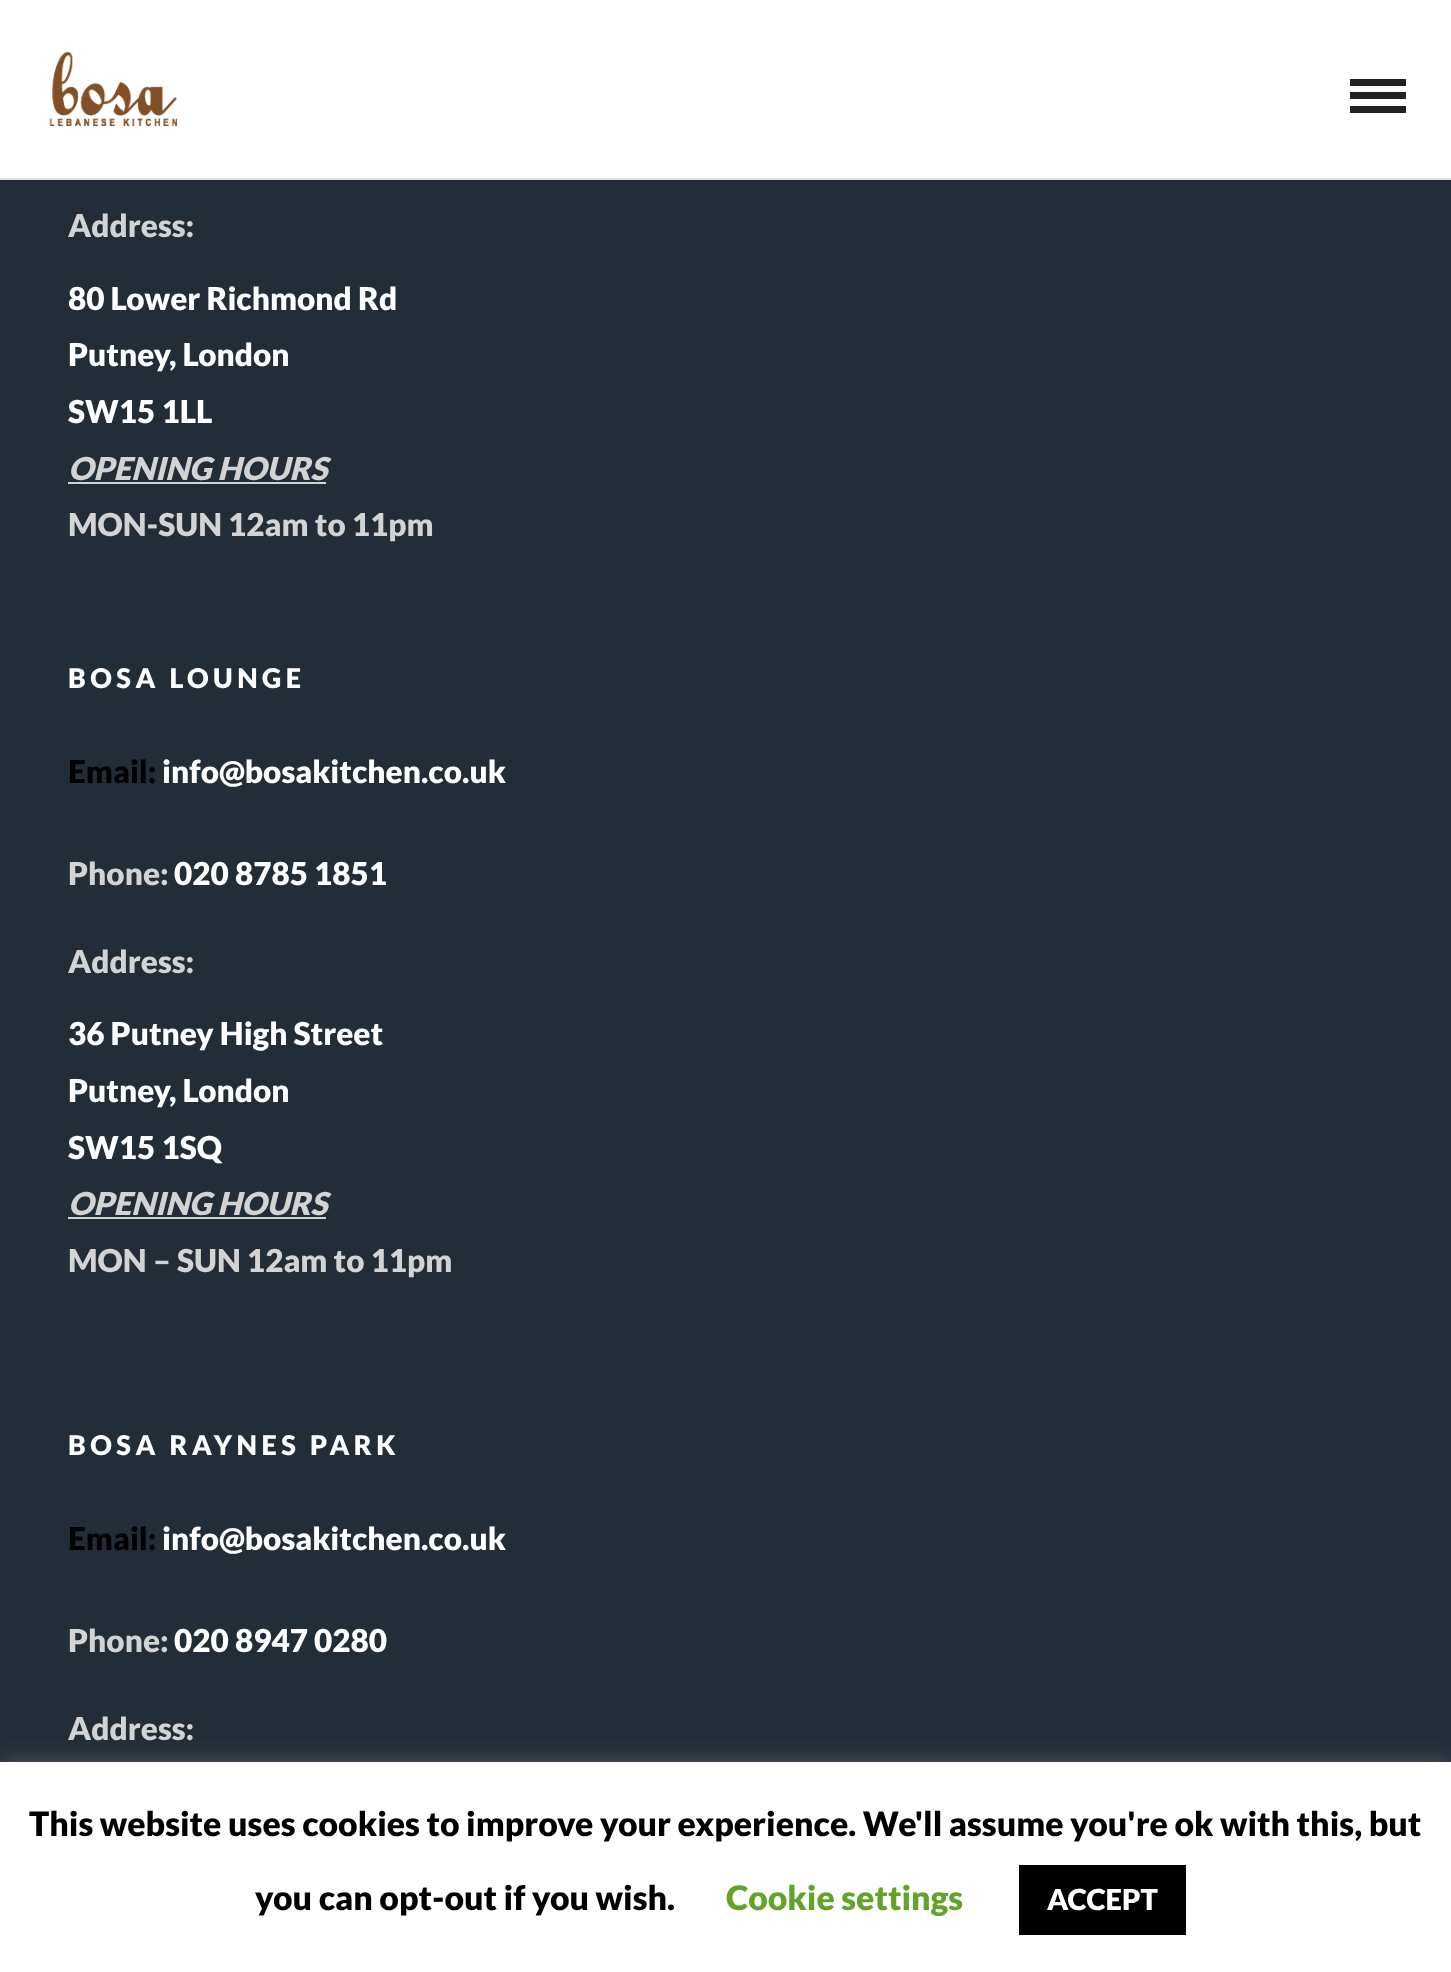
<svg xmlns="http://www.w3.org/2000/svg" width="1451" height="1972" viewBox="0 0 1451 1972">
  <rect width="100%" height="100%" fill="rgb(34,45,56)"/>
  <rect x="0" y="0" width="1451" height="178" fill="rgb(255,255,255)"/>
  <rect x="0" y="178" width="1451" height="2" fill="rgb(225,225,225)"/>
  <image x="49" y="51" width="129" height="76" href="pic1.png"/>
  <rect x="1350" y="79" width="56" height="7" fill="rgb(34,34,34)"/>
  <rect x="1350" y="92" width="56" height="7" fill="rgb(34,34,34)"/>
  <rect x="1350" y="106" width="56" height="7" fill="rgb(34,34,34)"/>
  <text x="68" y="237" font-family="Lato" font-size="31.5" font-weight="900" fill="rgb(211,211,211)">Address:</text>
  <g font-family="Lato" font-size="31.5" font-weight="900" fill="rgb(255,255,255)">
    <text>
      <tspan x="68" y="310">80 Lower Richmond Rd</tspan>
      <tspan x="68" y="366">Putney, London</tspan>
      <tspan x="68" y="423">SW15 1LL</tspan>
    </text>
  </g>
  <text x="68" y="480" font-family="Lato" font-size="31.5" font-weight="900" font-style="italic" fill="rgb(211,211,211)">OPENING HOURS</text>
  <rect x="68" y="482" width="258" height="2" fill="rgb(211,211,211)"/>
  <text x="68" y="536" font-family="Lato" font-size="31.5" font-weight="900" fill="rgb(211,211,211)">MON-SUN 12am to 11pm</text>
  <text x="68" y="688" font-family="Lato" font-size="27" font-weight="900" letter-spacing="4.5" fill="rgb(255,255,255)">BOSA LOUNGE</text>
  <text x="68" y="783" font-family="Lato" font-size="31.5" font-weight="900" fill="rgb(0,0,0)">Email:</text>
  <text x="162" y="783" font-family="Lato" font-size="31.5" font-weight="900" fill="rgb(255,255,255)">info@bosakitchen.co.uk</text>
  <text x="68" y="885" font-family="Lato" font-size="31.5" font-weight="900" fill="rgb(211,211,211)">Phone:</text>
  <text x="174" y="885" font-family="Lato" font-size="31.5" font-weight="900" fill="rgb(255,255,255)">020 8785 1851</text>
  <text x="68" y="973" font-family="Lato" font-size="31.5" font-weight="900" fill="rgb(211,211,211)">Address:</text>
  <g font-family="Lato" font-size="31.5" font-weight="900" fill="rgb(255,255,255)">
    <text>
      <tspan x="68" y="1045">36 Putney High Street</tspan>
      <tspan x="68" y="1102">Putney, London</tspan>
      <tspan x="68" y="1159">SW15 1SQ</tspan>
    </text>
  </g>
  <text x="68" y="1215" font-family="Lato" font-size="31.5" font-weight="900" font-style="italic" fill="rgb(211,211,211)">OPENING HOURS</text>
  <rect x="68" y="1217" width="258" height="2" fill="rgb(211,211,211)"/>
  <text x="68" y="1272" font-family="Lato" font-size="31.5" font-weight="900" fill="rgb(211,211,211)">MON – SUN 12am to 11pm</text>
  <text x="68" y="1455" font-family="Lato" font-size="27" font-weight="900" letter-spacing="4.5" fill="rgb(255,255,255)">BOSA RAYNES PARK</text>
  <text x="68" y="1550" font-family="Lato" font-size="31.5" font-weight="900" fill="rgb(0,0,0)">Email:</text>
  <text x="162" y="1550" font-family="Lato" font-size="31.5" font-weight="900" fill="rgb(255,255,255)">info@bosakitchen.co.uk</text>
  <text x="68" y="1652" font-family="Lato" font-size="31.5" font-weight="900" fill="rgb(211,211,211)">Phone:</text>
  <text x="174" y="1652" font-family="Lato" font-size="31.5" font-weight="900" fill="rgb(255,255,255)">020 8947 0280</text>
  <text x="68" y="1740" font-family="Lato" font-size="31.5" font-weight="900" fill="rgb(211,211,211)">Address:</text>
  <rect x="0" y="1760" width="1451" height="211" fill="rgba(172,171,171,0.3)" filter="blur(11px)"/>
  <rect x="0" y="1762" width="1451" height="210" fill="rgb(255,255,255)"/>
  <g font-family="Lato" font-size="33.75" font-weight="900" fill="rgb(0,0,0)">
    <text x="29" y="1836">This website uses cookies to improve your experience. We'll assume you're ok with this, but</text>
    <text x="255" y="1910">you can opt-out if you wish.</text>
  </g>
  <text x="726" y="1910" font-family="Lato" font-size="33.75" font-weight="900" fill="rgb(98,163,41)">Cookie settings</text>
  <rect x="1019" y="1865" width="167" height="70" fill="rgb(0,0,0)"/>
  <text x="1047" y="1910" font-family="Lato" font-size="29" font-weight="900" fill="rgb(255,255,255)">ACCEPT</text>
</svg>
